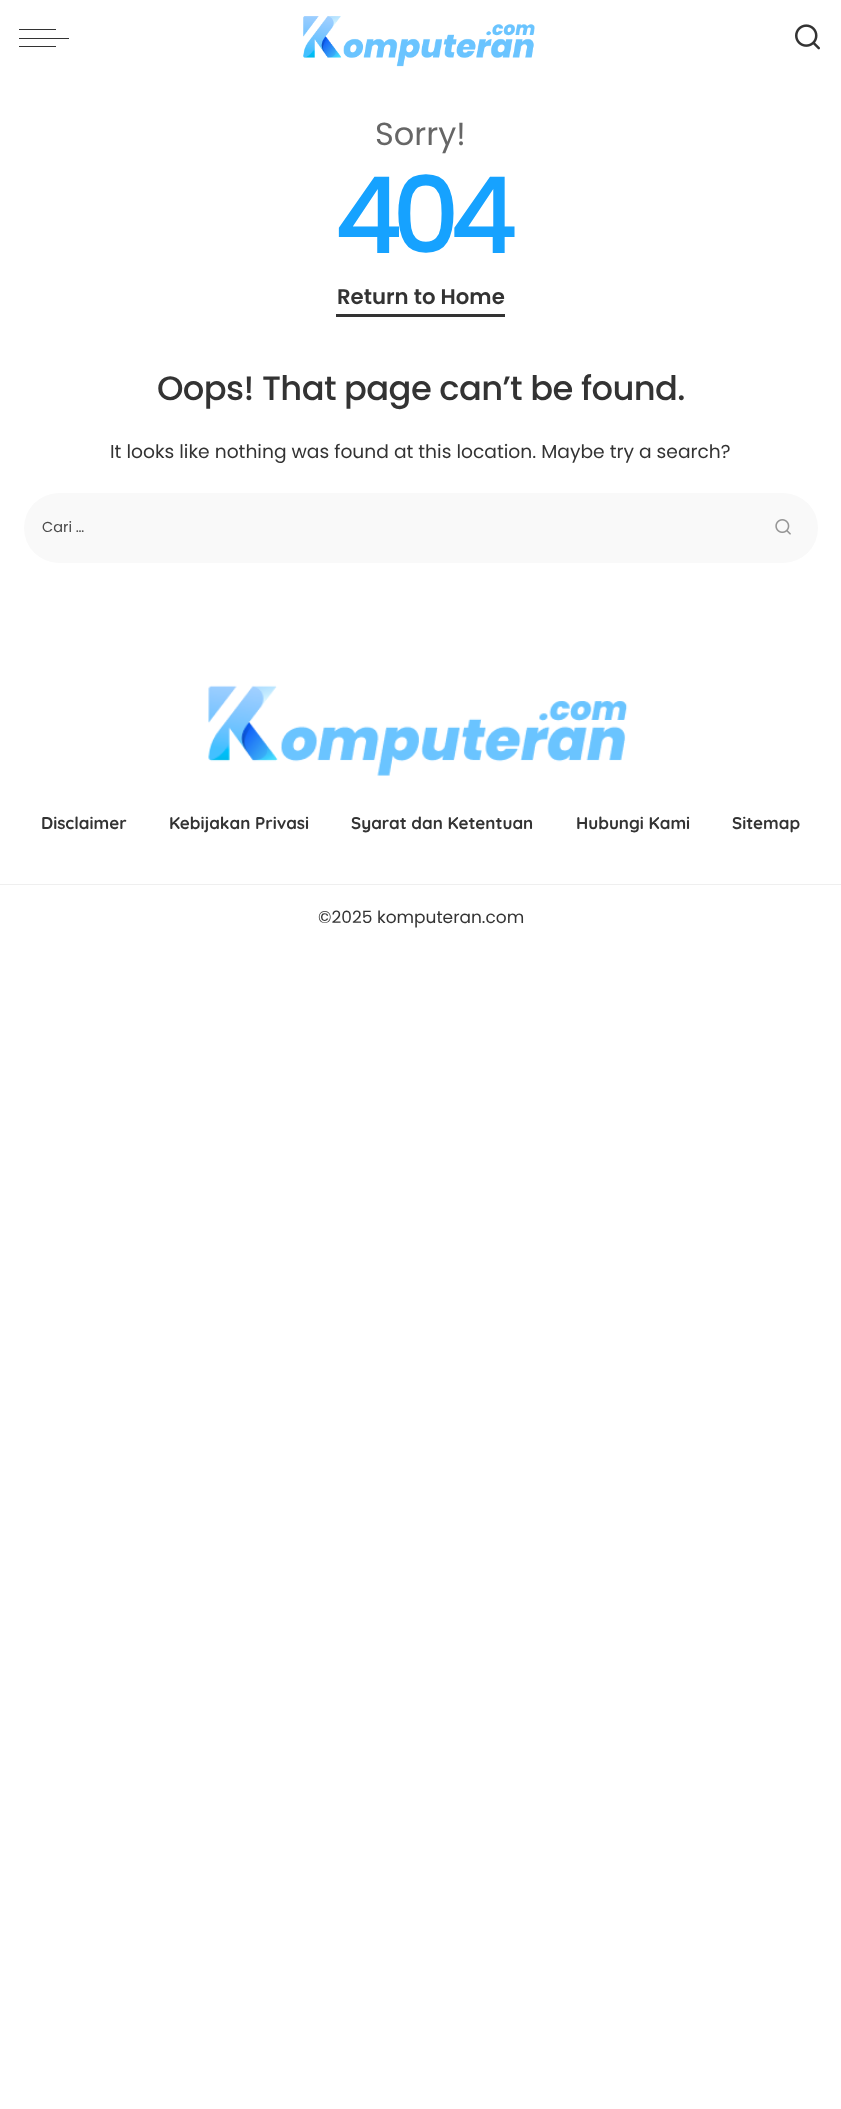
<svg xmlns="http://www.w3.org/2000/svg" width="841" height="2109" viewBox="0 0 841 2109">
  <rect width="100%" height="100%" fill="rgb(255,255,255)"/>
  <rect x="19" y="38" width="50" height="1" fill="rgb(51,51,51)"/>
  <rect x="19" y="29" width="37" height="1" fill="rgb(51,51,51)"/>
  <rect x="19" y="46" width="37" height="1" fill="rgb(51,51,51)"/>
  <image x="303" y="16" width="232" height="51" href="pic1.png"/>
  <image x="795" y="24" width="25" height="26" href="pic2.png"/>
  <text x="375" y="145" font-family="Poppins" font-size="32" fill="rgb(102,102,102)">Sorry!</text>
  <text x="334" y="253" font-family="Poppins" font-size="106" font-weight="500" letter-spacing="-10.5" fill="rgb(22,162,255)">404</text>
  <rect x="336" y="314" width="169" height="3" fill="rgb(51,51,51)"/>
  <text x="337" y="304" font-family="Poppins" font-size="21.25" font-weight="600" fill="rgb(51,51,51)">Return to Home</text>
  <text x="157" y="400" font-family="Poppins" font-size="33.75" font-weight="500" letter-spacing="-0.6" fill="rgb(51,51,51)">Oops! That page can’t be found.</text>
  <text x="110" y="458" font-family="Poppins" font-size="18.7" fill="rgb(51,51,51)">It looks like nothing was found at this location. Maybe try a search?</text>
  <rect x="24" y="493" width="794" height="70" rx="35" fill="rgb(249,249,249)"/>
  <text x="42" y="532" font-family="Poppins" font-size="14.5" fill="rgb(75,75,75)">Cari …</text>
  <image x="775" y="519" width="16" height="16" href="pic3.png"/>
  <image x="208" y="685" width="420" height="91" href="pic4.png"/>
  <g font-family="Quicksand" font-size="17" font-weight="bold" fill="rgb(51,51,51)">
    <text x="41" y="829">Disclaimer</text>
    <text x="169" y="829">Kebijakan Privasi</text>
    <text x="351" y="829">Syarat dan Ketentuan</text>
    <text x="576" y="829">Hubungi Kami</text>
    <text x="732" y="829">Sitemap</text>
  </g>
  <rect x="0" y="884" width="841" height="1" fill="rgb(239,239,239)"/>
  <text x="318" y="923" font-family="Poppins" font-size="17" fill="rgb(51,51,51)">©2025 komputeran.com</text>
</svg>
